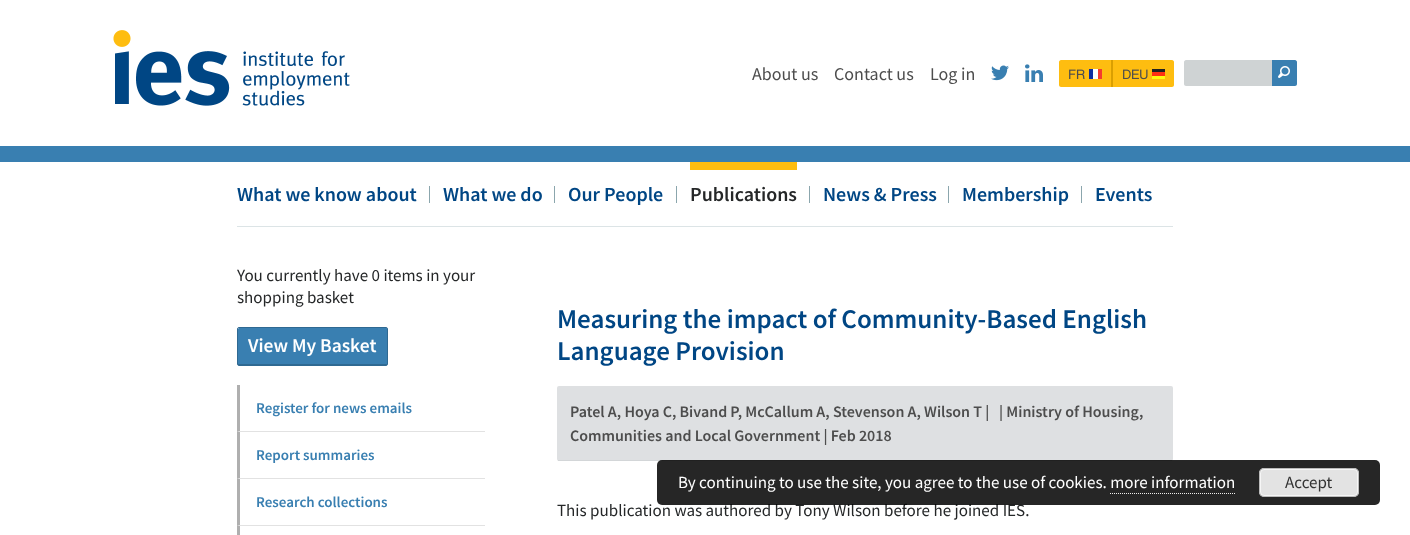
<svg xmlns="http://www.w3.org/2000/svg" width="1410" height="535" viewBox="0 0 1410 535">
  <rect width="100%" height="100%" fill="rgb(255,255,255)"/>
  <image x="113" y="30" width="237" height="76" href="pic1.png"/>
  <g font-family="Source Sans Pro" font-size="18" fill="rgb(77,77,77)">
    <text x="752" y="80">About us</text>
    <text x="834" y="80">Contact us</text>
    <text x="930" y="80">Log in</text>
  </g>
  <image x="991" y="65" width="18" height="16" href="pic2.png"/>
  <image x="1025" y="64" width="18" height="18" href="pic3.png"/>
  <path d="M1061 60H1113V87H1061C1060 87 1059 86 1059 85V62C1059 61 1060 60 1061 60Z" fill="rgb(254,189,16)"/>
  <rect x="1111" y="60" width="2" height="27" fill="rgb(218,159,1)"/>
  <image x="1069" y="69" width="16" height="10" href="pic4.png"/>
  <image x="1089" y="69" width="13" height="10" href="pic5.png"/>
  <path d="M1113 60H1172C1173 60 1174 61 1174 62V85C1174 86 1173 87 1172 87H1113Z" fill="rgb(254,189,16)"/>
  <image x="1123" y="69" width="25" height="11" href="pic6.png"/>
  <image x="1152" y="69" width="13" height="10" href="pic7.png"/>
  <path d="M1186 60H1272V86H1186C1185 86 1184 85 1184 84V62C1184 61 1185 60 1186 60Z" fill="rgb(207,211,212)"/>
  <path d="M1272 60H1295C1296 60 1297 61 1297 62V84C1297 85 1296 86 1295 86H1272Z" fill="rgb(57,127,177)"/>
  <image x="1278" y="66" width="12" height="12" href="pic8.png"/>
  <rect x="0" y="146" width="1410" height="16" fill="rgb(57,127,177)"/>
  <rect x="237" y="226" width="936" height="1" fill="rgb(220,228,230)"/>
  <text x="237" y="201" font-family="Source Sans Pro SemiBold" font-size="20" font-weight="600" fill="rgb(0,70,132)">What we know about</text>
  <rect x="429" y="186" width="1" height="17" fill="rgb(139,166,173)"/>
  <text x="443" y="201" font-family="Source Sans Pro SemiBold" font-size="20" font-weight="600" fill="rgb(0,70,132)">What we do</text>
  <rect x="554" y="186" width="1" height="17" fill="rgb(139,166,173)"/>
  <text x="568" y="201" font-family="Source Sans Pro SemiBold" font-size="20" font-weight="600" fill="rgb(0,70,132)">Our People</text>
  <rect x="676" y="186" width="1" height="17" fill="rgb(139,166,173)"/>
  <rect x="690" y="162" width="107" height="8" fill="rgb(254,189,16)"/>
  <text x="690" y="201" font-family="Source Sans Pro SemiBold" font-size="20" font-weight="600" fill="rgb(37,39,40)">Publications</text>
  <rect x="809" y="186" width="1" height="17" fill="rgb(139,166,173)"/>
  <text x="823" y="201" font-family="Source Sans Pro SemiBold" font-size="20" font-weight="600" fill="rgb(0,70,132)">News &amp; Press</text>
  <rect x="948" y="186" width="1" height="17" fill="rgb(139,166,173)"/>
  <text x="962" y="201" font-family="Source Sans Pro SemiBold" font-size="20" font-weight="600" fill="rgb(0,70,132)">Membership</text>
  <rect x="1081" y="186" width="1" height="17" fill="rgb(139,166,173)"/>
  <text x="1095" y="201" font-family="Source Sans Pro SemiBold" font-size="20" font-weight="600" fill="rgb(0,70,132)">Events</text>
  <g font-family="Source Sans Pro" font-size="17" fill="rgb(37,39,40)">
    <text>
      <tspan x="237" y="281">You currently have 0 items in your</tspan>
      <tspan x="237" y="303">shopping basket</tspan>
    </text>
  </g>
  <path d="M239 328H386C387 328 387 328 387 329V364H238V329Z" fill="rgb(57,127,177)"/>
  <rect x="237.5" y="327.5" width="150" height="38" rx="1.5" fill="none" stroke="rgb(47,105,146)"/>
  <rect x="238" y="364" width="149" height="1" fill="rgb(47,105,146)"/>
  <text x="248" y="352" font-family="Source Sans Pro SemiBold" font-size="19.5" font-weight="600" fill="rgb(255,255,255)">View My Basket</text>
  <path d="M485 432H237L240 431H485Z" fill="rgb(226,226,226)"/>
  <path d="M237 432V385H240V431Z" fill="rgb(175,175,175)"/>
  <text x="256" y="413" font-family="Source Sans Pro SemiBold" font-size="15" font-weight="600" fill="rgb(57,127,177)">Register for news emails</text>
  <path d="M485 479H237L240 478H485Z" fill="rgb(226,226,226)"/>
  <path d="M237 479V432H240V478Z" fill="rgb(175,175,175)"/>
  <text x="256" y="460" font-family="Source Sans Pro SemiBold" font-size="15" font-weight="600" fill="rgb(57,127,177)">Report summaries</text>
  <path d="M485 526H237L240 525H485Z" fill="rgb(226,226,226)"/>
  <path d="M237 526V479H240V525Z" fill="rgb(175,175,175)"/>
  <text x="256" y="507" font-family="Source Sans Pro SemiBold" font-size="15" font-weight="600" fill="rgb(57,127,177)">Research collections</text>
  <rect x="237" y="526" width="3" height="9" fill="rgb(175,175,175)"/>
  <g font-family="Source Sans Pro SemiBold" font-size="27" font-weight="600" fill="rgb(0,70,132)">
    <text>
      <tspan x="557" y="328">Measuring the impact of Community-Based English</tspan>
      <tspan x="557" y="360">Language Provision</tspan>
    </text>
  </g>
  <rect x="557" y="386" width="616" height="75" rx="2" fill="rgb(222,224,226)"/>
  <rect x="558" y="460" width="614" height="1" fill="rgb(211,214,216)"/>
  <g font-family="Source Sans Pro SemiBold" font-size="16" font-weight="600" fill="rgb(77,77,77)">
    <text x="570" y="417">Patel A, Hoya C, Bivand P, McCallum A, Stevenson A, Wilson T |</text>
    <text x="999" y="417">| Ministry of Housing,</text>
    <text x="570" y="441">Communities and Local Government | Feb 2018</text>
  </g>
  <text x="557" y="516" font-family="Source Sans Pro" font-size="17" fill="rgb(37,39,40)">This publication was authored by Tony Wilson before he joined IES.</text>
  <rect x="657" y="460" width="723" height="45" rx="5" fill="rgba(0,0,0,0.85)"/>
  <text x="678" y="488" font-family="Source Sans Pro" font-size="17" fill="rgb(255,255,255)">By continuing to use the site, you agree to the use of cookies. more information</text>
  <rect x="1259" y="468" width="100" height="29" rx="5" fill="rgb(227,227,227)"/>
  <rect x="1260.5" y="469.5" width="97" height="26" rx="3.5" fill="none" stroke="rgb(246,246,246)"/>
  <rect x="1259.5" y="468.5" width="99" height="28" rx="4.5" fill="none" stroke="rgb(187,187,187)"/>
  <text x="1285" y="488" font-family="Source Sans Pro" font-size="17" fill="rgb(51,51,51)">Accept</text>
  <path d="M1110 493.5H1236" fill="none" stroke="rgb(238,238,238)" stroke-dasharray="1 1"/>
</svg>
